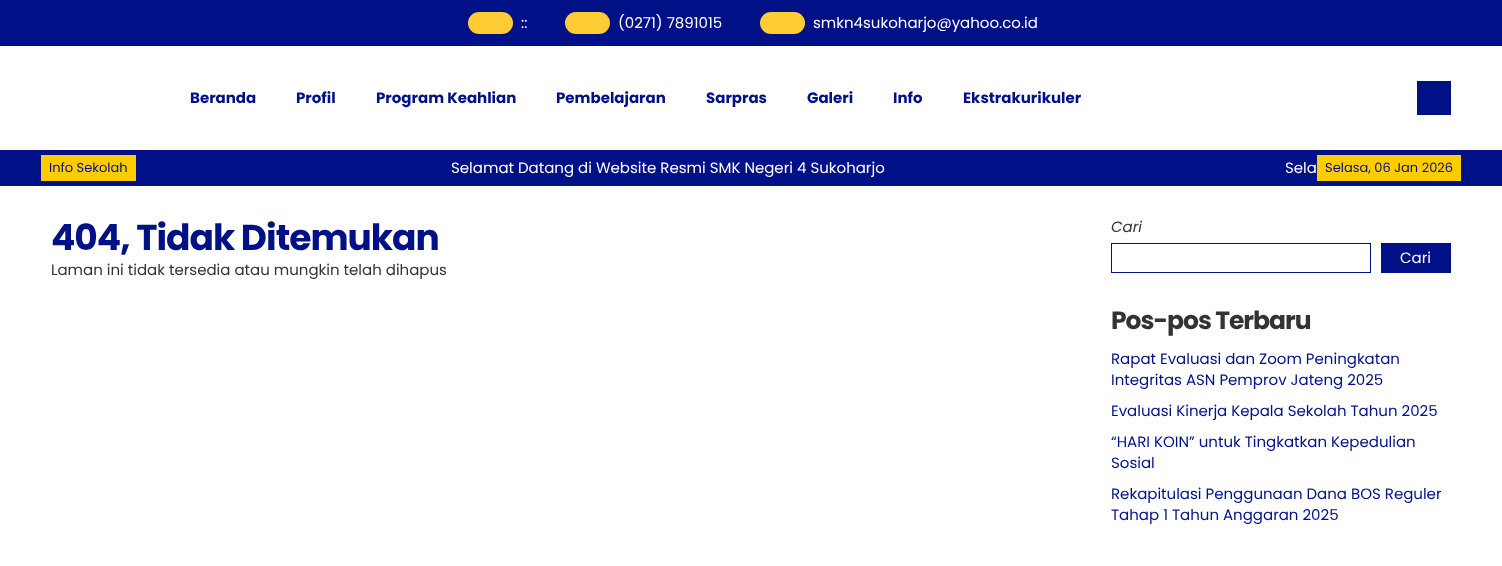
<svg xmlns="http://www.w3.org/2000/svg" width="1502" height="566" viewBox="0 0 1502 566">
  <rect width="100%" height="100%" fill="rgb(255,255,255)"/>
  <rect x="0" y="0" width="1502" height="46" fill="rgb(0,17,136)"/>
  <rect x="468" y="12" width="45" height="22" rx="11" fill="rgb(255,204,51)"/>
  <text x="521" y="28" font-family="Poppins" font-size="15" fill="rgb(255,255,255)">::</text>
  <rect x="565" y="12" width="45" height="22" rx="11" fill="rgb(255,204,51)"/>
  <text x="618" y="28" font-family="Poppins" font-size="15" fill="rgb(255,255,255)">(0271) 7891015</text>
  <rect x="760" y="12" width="45" height="22" rx="11" fill="rgb(255,204,51)"/>
  <text x="813" y="28" font-family="Poppins" font-size="15" fill="rgb(255,255,255)">smkn4sukoharjo@yahoo.co.id</text>
  <g font-family="Poppins" font-size="15" font-weight="bold" fill="rgb(0,17,136)">
    <text x="190" y="103">Beranda</text>
    <text x="296" y="103">Profil</text>
    <text x="376" y="103">Program Keahlian</text>
    <text x="556" y="103">Pembelajaran</text>
    <text x="706" y="103">Sarpras</text>
    <text x="807" y="103">Galeri</text>
    <text x="893" y="103">Info</text>
    <text x="963" y="103">Ekstrakurikuler</text>
  </g>
  <rect x="1417" y="81" width="34" height="34" fill="rgb(0,17,136)"/>
  <rect x="0" y="150" width="1502" height="36" fill="rgb(0,17,136)"/>
  <rect x="41" y="155" width="95" height="26" fill="rgb(255,204,0)"/>
  <text x="49" y="172" font-family="Poppins" font-size="13" fill="rgb(0,17,136)">Info Sekolah</text>
  <g font-family="Poppins" font-size="15" fill="rgb(255,255,255)">
    <text x="451" y="173">Selamat Datang di Website Resmi SMK Negeri 4 Sukoharjo</text>
    <text x="1285" y="173">Sela</text>
  </g>
  <rect x="1317" y="155" width="144" height="26" fill="rgb(255,204,0)"/>
  <text x="1325" y="172" font-family="Poppins" font-size="13" fill="rgb(0,17,136)">Selasa, 06 Jan 2026</text>
  <text x="51" y="250" font-family="Poppins" font-size="36" font-weight="bold" letter-spacing="-1" fill="rgb(0,17,136)">404, Tidak Ditemukan</text>
  <text x="51" y="275" font-family="Poppins" font-size="15" fill="rgb(51,51,51)">Laman ini tidak tersedia atau mungkin telah dihapus</text>
  <text x="1111" y="232" font-family="Poppins" font-size="15" font-style="italic" fill="rgb(51,51,51)">Cari</text>
  <rect x="1111.5" y="243.5" width="259" height="29" fill="none" stroke="rgb(0,17,136)"/>
  <rect x="1381" y="243" width="70" height="30" fill="rgb(0,17,136)"/>
  <text x="1400" y="263" font-family="Poppins" font-size="15" fill="rgb(255,255,255)">Cari</text>
  <text x="1111" y="329" font-family="Poppins" font-size="25" font-weight="bold" letter-spacing="-1" fill="rgb(51,51,51)">Pos-pos Terbaru</text>
  <g font-family="Poppins" font-size="15" fill="rgb(0,17,136)">
    <text>
      <tspan x="1111" y="364">Rapat Evaluasi dan Zoom Peningkatan</tspan>
      <tspan x="1111" y="385">Integritas ASN Pemprov Jateng 2025</tspan>
    </text>
    <text x="1111" y="416">Evaluasi Kinerja Kepala Sekolah Tahun 2025</text>
    <text>
      <tspan x="1111" y="447">“HARI KOIN” untuk Tingkatkan Kepedulian</tspan>
      <tspan x="1111" y="468">Sosial</tspan>
    </text>
    <text>
      <tspan x="1111" y="499">Rekapitulasi Penggunaan Dana BOS Reguler</tspan>
      <tspan x="1111" y="520">Tahap 1 Tahun Anggaran 2025</tspan>
    </text>
  </g>
</svg>
